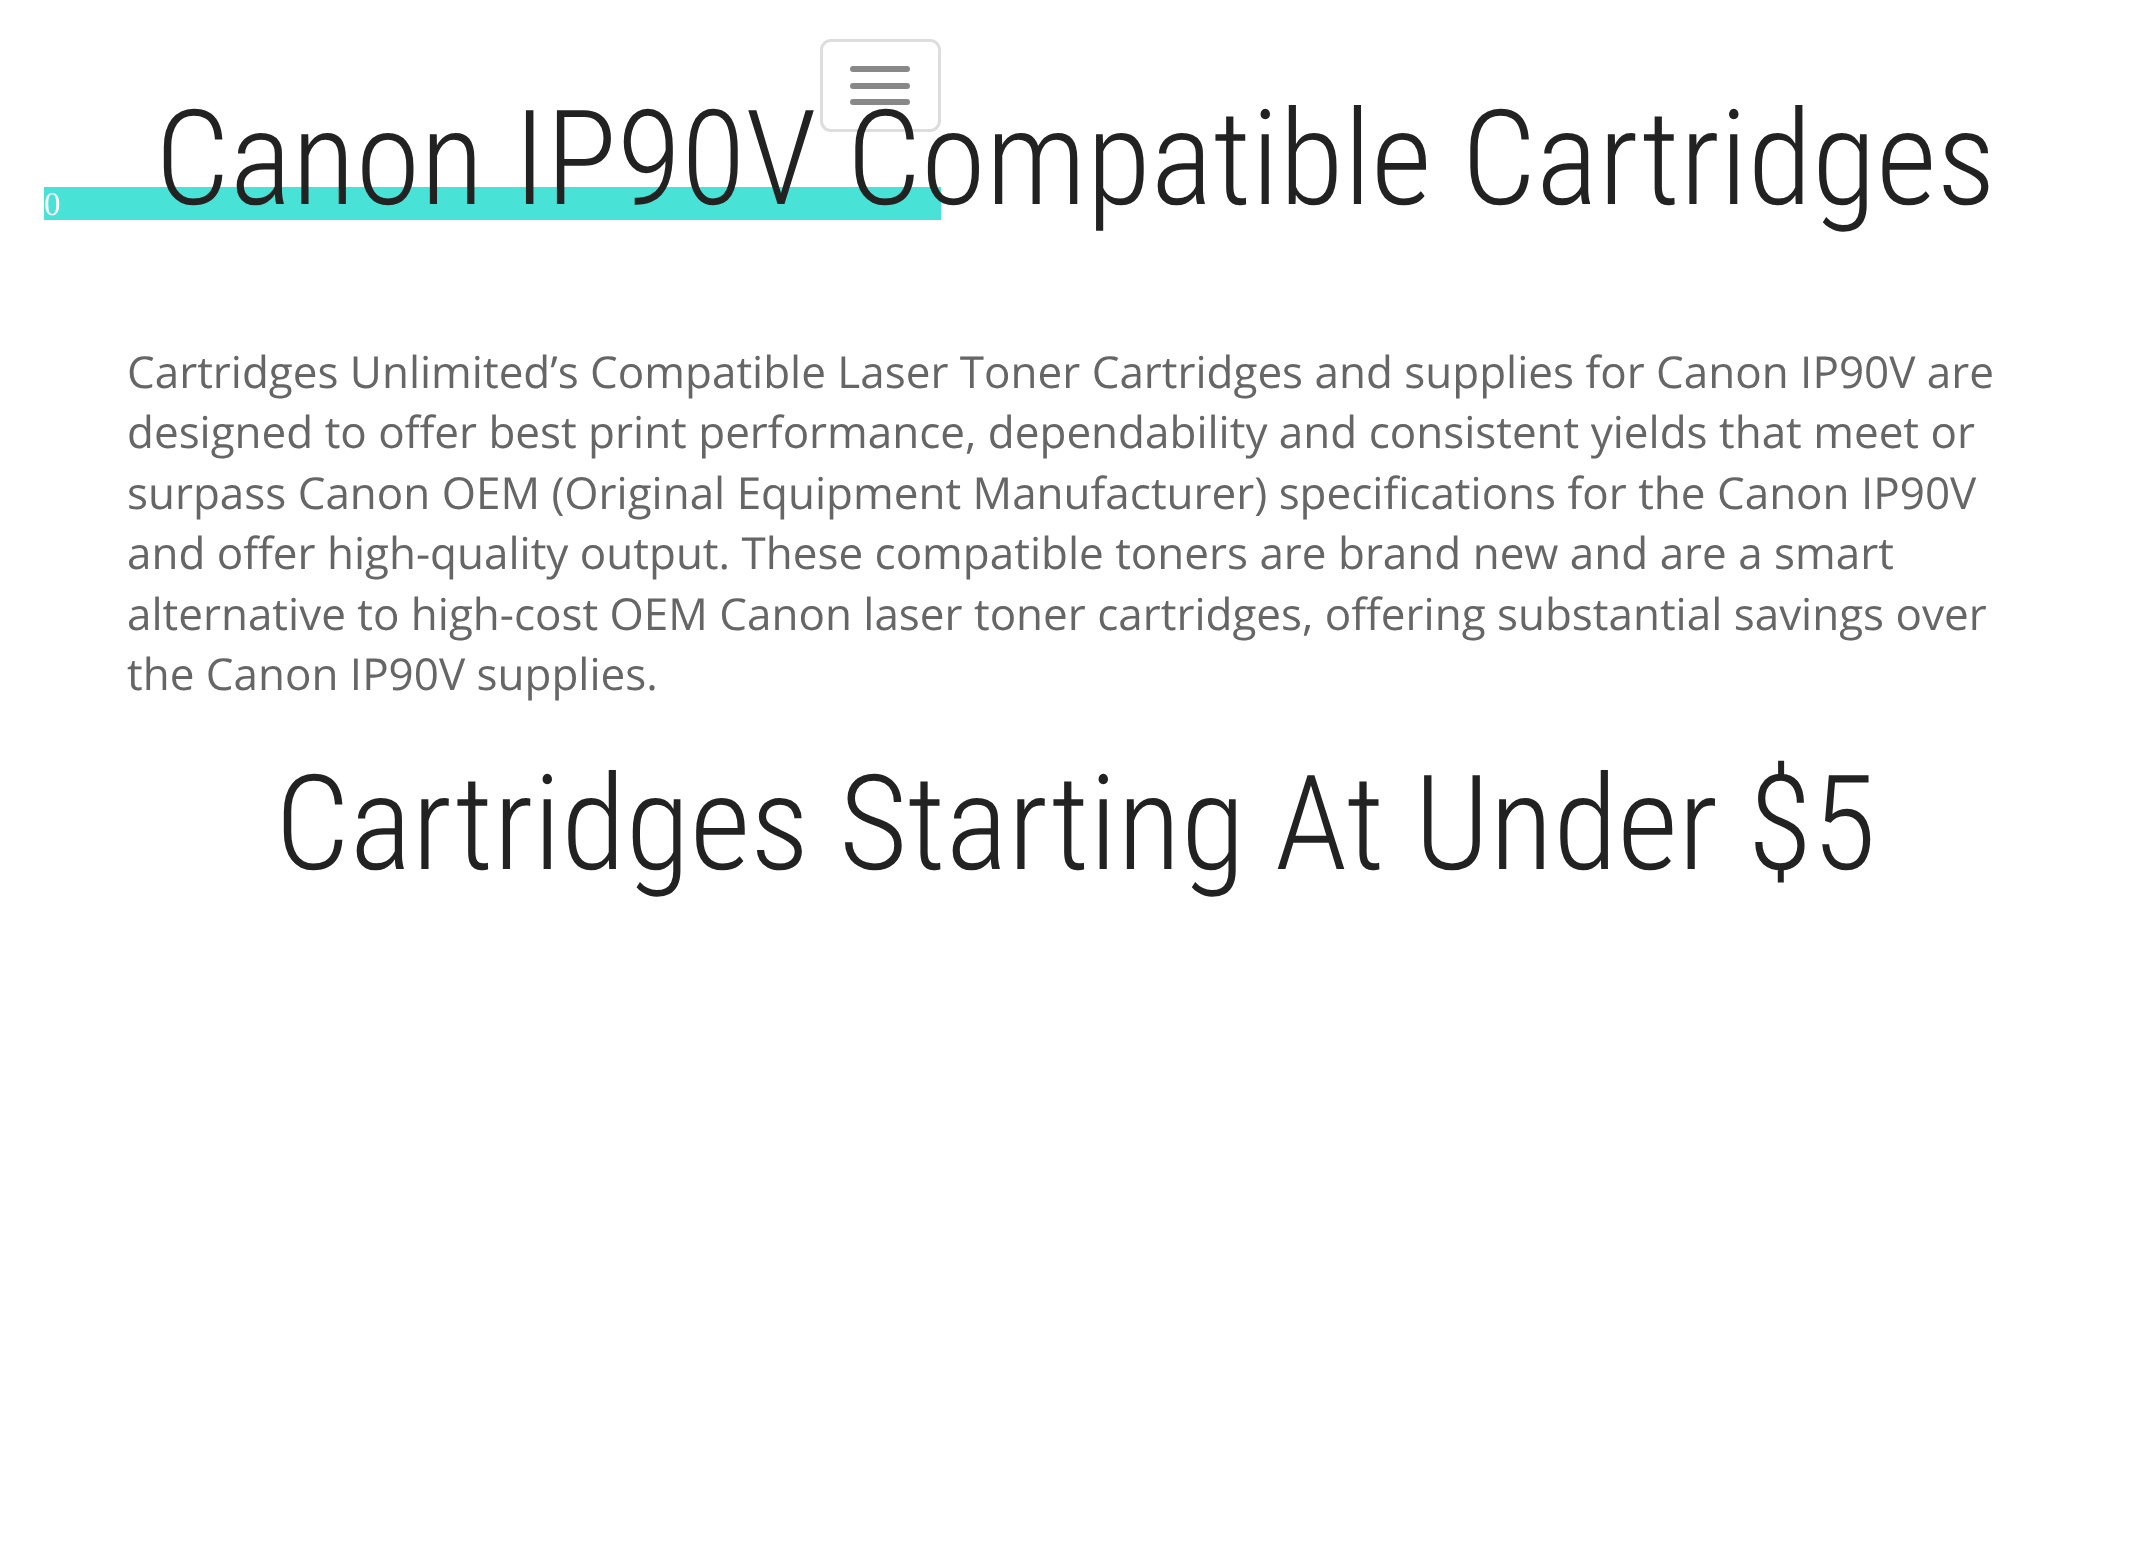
<svg xmlns="http://www.w3.org/2000/svg" width="2149" height="1551" viewBox="0 0 2149 1551">
  <rect width="100%" height="100%" fill="rgb(255,255,255)"/>
  <rect x="821.5" y="40.5" width="118" height="90" rx="9.5" fill="none" stroke="rgb(221,221,221)" stroke-width="3"/>
  <rect x="850" y="66" width="60" height="6" rx="3" fill="rgb(136,136,136)"/>
  <rect x="850" y="83" width="60" height="6" rx="3" fill="rgb(136,136,136)"/>
  <rect x="850" y="99" width="60" height="6" rx="3" fill="rgb(136,136,136)"/>
  <rect x="44" y="187" width="897" height="33" fill="rgb(73,226,214)"/>
  <text x="44" y="215" font-family="Liberation Serif" font-size="33" letter-spacing="11" fill="rgb(255,255,255)">0</text>
  <text x="155" y="204" font-family="Roboto Condensed" font-size="132" font-weight="300" fill="rgb(34,34,34)">Canon IP90V Compatible Cartridges</text>
  <g font-family="Open Sans" font-size="44" fill="rgb(102,102,102)">
    <text>
      <tspan x="127" y="388">Cartridges Unlimited’s Compatible Laser Toner Cartridges and supplies for Canon IP90V are</tspan>
      <tspan x="127" y="448">designed to offer best print performance, dependability and consistent yields that meet or</tspan>
      <tspan x="127" y="509">surpass Canon OEM (Original Equipment Manufacturer) specifications for the Canon IP90V</tspan>
      <tspan x="127" y="569">and offer high-quality output. These compatible toners are brand new and are a smart</tspan>
      <tspan x="127" y="630">alternative to high-cost OEM Canon laser toner cartridges, offering substantial savings over</tspan>
      <tspan x="127" y="690">the Canon IP90V supplies.</tspan>
    </text>
  </g>
  <text x="275" y="869" font-family="Roboto Condensed" font-size="132" font-weight="300" fill="rgb(34,34,34)">Cartridges Starting At Under $5</text>
</svg>
